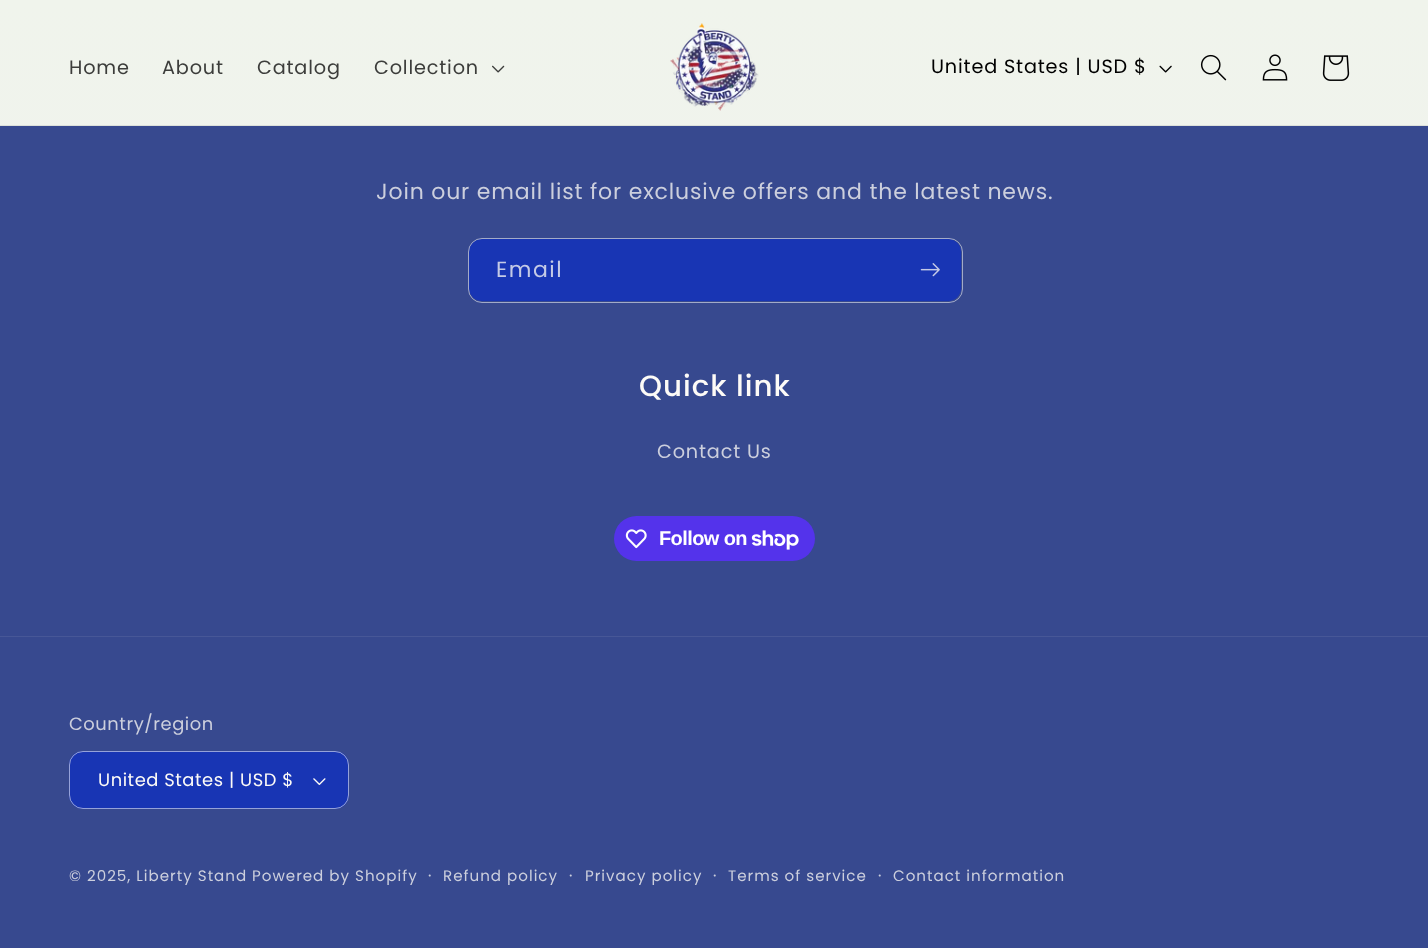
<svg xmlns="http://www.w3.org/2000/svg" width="1428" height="948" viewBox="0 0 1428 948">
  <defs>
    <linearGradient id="g1" gradientUnits="userSpaceOnUse" x1="714" y1="0" x2="714" y2="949"><stop offset="0" stop-color="rgb(240,244,236)"/><stop offset="1" stop-color="rgb(240,240,240)"/></linearGradient>
    <radialGradient id="g2" gradientUnits="userSpaceOnUse" cx="0" cy="0" r="1" gradientTransform="matrix(1010 0 0 671 714 474)"><stop offset="0" stop-color="rgb(55,73,143)"/><stop offset="1" stop-color="rgb(55,73,143)"/><stop offset="1" stop-color="rgb(215,255,137)"/></radialGradient>
  </defs>
  <rect width="100%" height="100%" fill="rgb(255,255,255)"/>
  <rect x="0" y="0" width="1428" height="125" fill="url(#g1)"/>
  <rect x="0" y="125" width="1428" height="1" fill="rgb(221,224,218)"/>
  <g font-family="Poppins" font-size="19.25" letter-spacing="0.83" fill="rgb(60,61,59)">
    <text x="69" y="74">Home</text>
    <text x="162" y="74">About</text>
    <text x="257" y="74">Catalog</text>
    <text x="374" y="74">Collection</text>
  </g>
  <image x="492" y="65" width="13" height="8" href="pic1.png"/>
  <image x="670" y="23" width="89" height="88" href="pic2.png"/>
  <text x="931" y="73" font-family="Poppins" font-size="19.25" letter-spacing="0.83" fill="rgb(0,0,0)">United States | USD $</text>
  <image x="1159" y="65" width="13" height="8" href="pic3.png"/>
  <image x="1200" y="54" width="27" height="27" href="pic4.png"/>
  <image x="1262" y="54" width="26" height="27" href="pic5.png"/>
  <image x="1322" y="55" width="28" height="26" href="pic6.png"/>
  <rect x="0" y="126" width="1428" height="187" fill="url(#g2)"/>
  <text x="376" y="199" font-family="Poppins" font-size="22" letter-spacing="0.83" fill="rgb(204,207,221)">Join our email list for exclusive offers and the latest news.</text>
  <rect x="469" y="239" width="492" height="62" rx="13" fill="rgb(24,53,180)"/>
  <rect x="468.5" y="238.5" width="494" height="64" rx="13.5" fill="none" stroke="rgba(253,251,247,0.55)"/>
  <text x="496" y="277" font-family="Poppins" font-size="22" letter-spacing="1.5" fill="rgb(196,202,230)">Email</text>
  <image x="920" y="263" width="20" height="14" href="pic7.png"/>
  <rect x="0" y="313" width="1428" height="635" fill="url(#g2)"/>
  <text x="639" y="396" font-family="Poppins" font-size="29.25" font-weight="500" letter-spacing="1" fill="rgb(253,251,247)">Quick link</text>
  <text x="657" y="458" font-family="Poppins" font-size="19.25" letter-spacing="0.83" fill="rgb(204,207,221)">Contact Us</text>
  <rect x="614" y="516" width="201" height="45" rx="22.5" fill="rgb(84,51,235)"/>
  <image x="625" y="529" width="22" height="20" href="pic8.png"/>
  <text x="659" y="545" font-family="Liberation Sans" font-size="20" font-weight="bold" letter-spacing="-0.6" fill="rgb(255,255,255)">Follow on</text>
  <image x="751" y="530" width="48" height="20" href="pic9.png"/>
  <rect x="0" y="636" width="1428" height="1" fill="rgb(71,87,151)"/>
  <text x="69" y="730" font-family="Poppins" font-size="17.9" letter-spacing="0.55" fill="rgb(204,207,221)">Country/region</text>
  <rect x="69" y="751" width="280" height="58" rx="14" fill="rgb(24,53,180)"/>
  <image x="313" y="778" width="13" height="7" href="pic10.png"/>
  <rect x="69.5" y="751.5" width="279" height="57" rx="13.5" fill="none" stroke="rgba(253,251,247,0.55)"/>
  <text x="98" y="786" font-family="Poppins" font-size="17.9" letter-spacing="0.55" fill="rgb(253,251,247)">United States | USD $</text>
  <g font-family="Poppins" font-size="15.1" letter-spacing="1" fill="rgb(204,207,221)">
    <text x="69" y="881">© 2025, Liberty Stand</text>
    <text x="252" y="881">Powered by Shopify</text>
  </g>
  <text x="428" y="881" font-family="Poppins" font-size="16" letter-spacing="1" fill="rgb(204,207,221)">·</text>
  <text x="443" y="881" font-family="Poppins" font-size="15.1" letter-spacing="1" fill="rgb(204,207,221)">Refund policy</text>
  <text x="569" y="881" font-family="Poppins" font-size="16" letter-spacing="1" fill="rgb(204,207,221)">·</text>
  <text x="585" y="881" font-family="Poppins" font-size="15.1" letter-spacing="1" fill="rgb(204,207,221)">Privacy policy</text>
  <text x="713" y="881" font-family="Poppins" font-size="16" letter-spacing="1" fill="rgb(204,207,221)">·</text>
  <text x="728" y="881" font-family="Poppins" font-size="15.1" letter-spacing="1" fill="rgb(204,207,221)">Terms of service</text>
  <text x="878" y="881" font-family="Poppins" font-size="16" letter-spacing="1" fill="rgb(204,207,221)">·</text>
  <text x="893" y="881" font-family="Poppins" font-size="15.1" letter-spacing="1" fill="rgb(204,207,221)">Contact information</text>
</svg>
